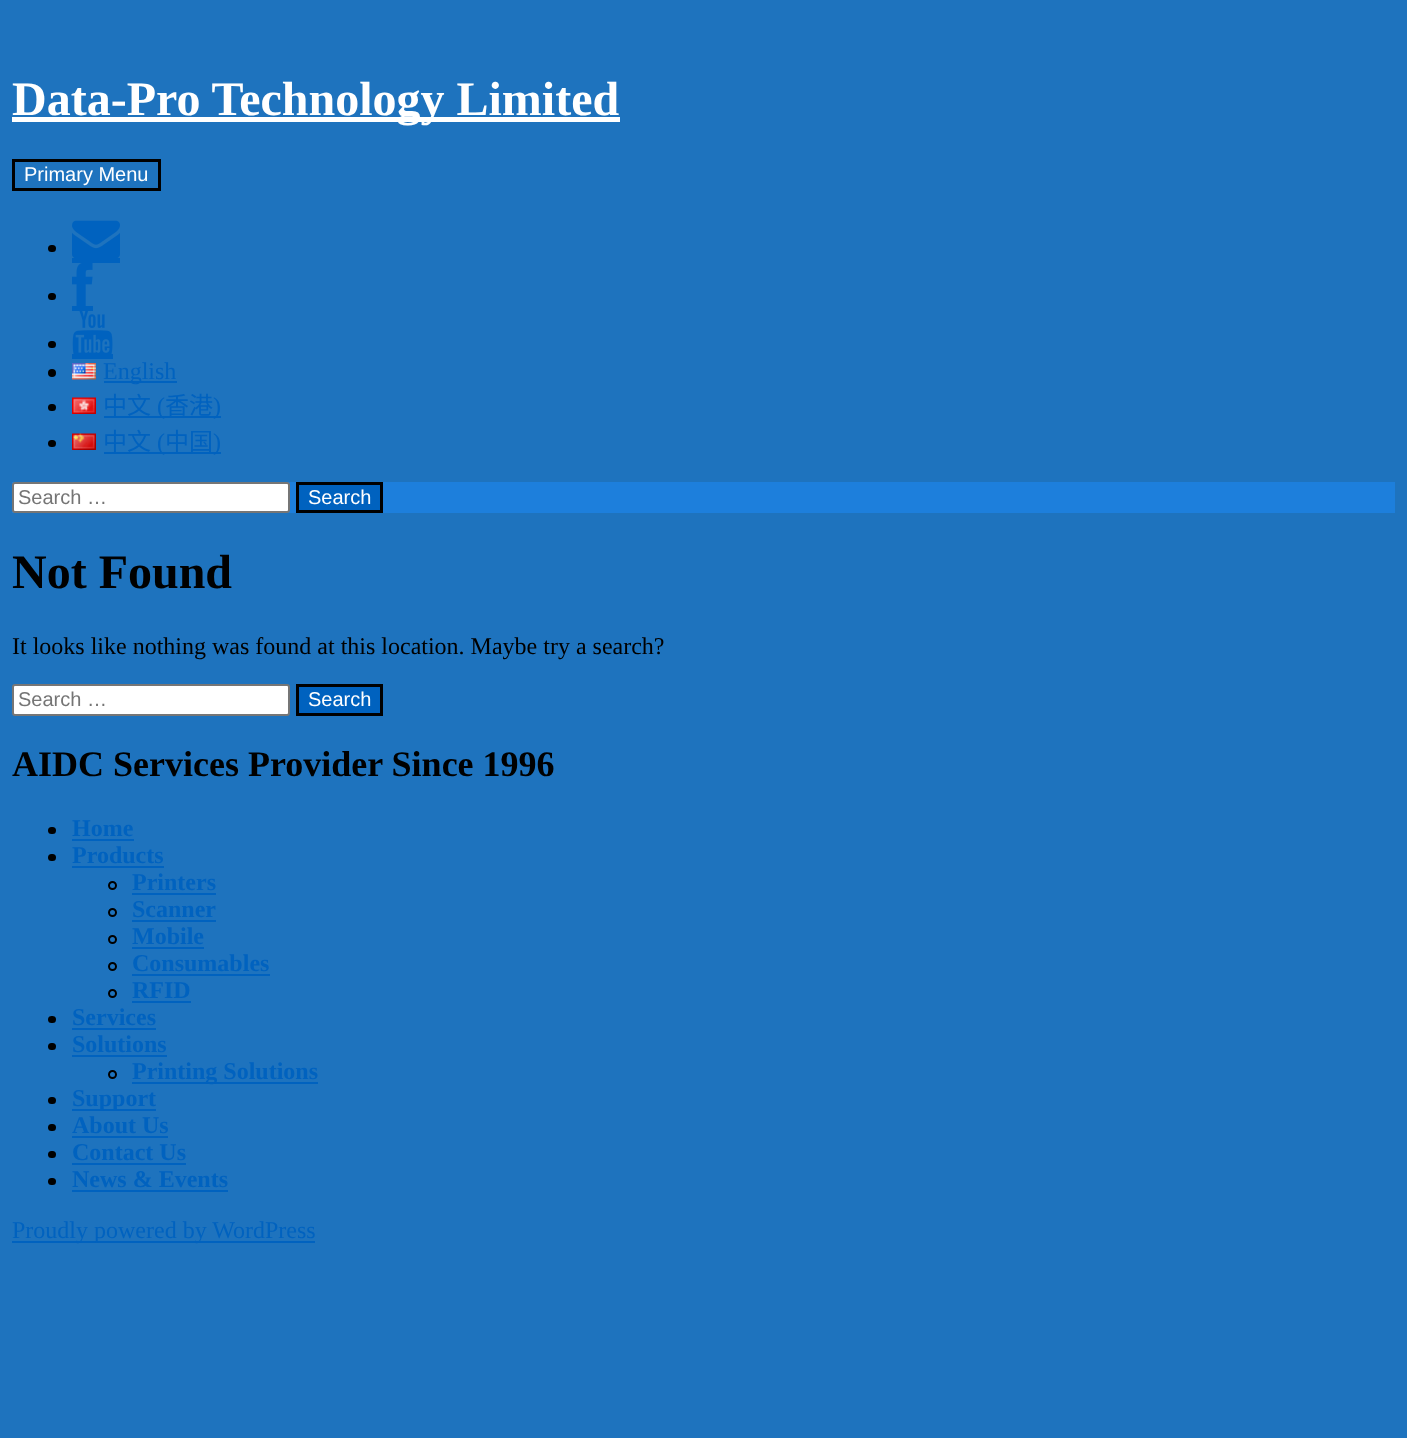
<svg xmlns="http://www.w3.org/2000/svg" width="1407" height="1438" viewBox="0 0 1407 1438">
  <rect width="100%" height="100%" fill="rgb(30,115,190)"/>
  <rect x="12" y="117" width="608" height="5" fill="rgb(255,255,255)"/>
  <text x="12" y="115" font-family="Liberation Serif" font-size="48" font-weight="bold" fill="rgb(255,255,255)">Data-Pro Technology Limited</text>
  <rect x="13.5" y="160.5" width="146" height="29" fill="none" stroke="rgb(0,0,0)" stroke-width="3"/>
  <text x="24" y="181" font-family="Liberation Sans" font-size="20" fill="rgb(255,255,255)">Primary Menu</text>
  <rect x="48" y="245" width="8" height="7" rx="3.5" fill="rgb(0,0,0)"/>
  <rect x="72" y="258" width="48" height="5" fill="rgb(0,98,191)"/>
  <image x="72" y="220" width="48" height="38" href="pic1.png"/>
  <rect x="48" y="293" width="8" height="7" rx="3.5" fill="rgb(0,0,0)"/>
  <rect x="72" y="306" width="21" height="5" fill="rgb(0,98,191)"/>
  <image x="72" y="263" width="21" height="43" href="pic2.png"/>
  <rect x="48" y="341" width="8" height="7" rx="3.5" fill="rgb(0,0,0)"/>
  <rect x="72" y="354" width="41" height="5" fill="rgb(0,98,191)"/>
  <image x="72" y="311" width="41" height="43" href="pic3.png"/>
  <circle cx="52" cy="373" r="4" fill="rgb(0,0,0)"/>
  <image x="72" y="363" width="24" height="17" href="pic4.png"/>
  <rect x="104" y="381" width="73" height="2" fill="rgb(0,98,191)"/>
  <text x="103" y="379" font-family="Liberation Serif" font-size="24" fill="rgb(0,98,191)">English</text>
  <rect x="48" y="404" width="8" height="7" rx="3.5" fill="rgb(0,0,0)"/>
  <image x="72" y="397" width="24" height="17" href="pic5.png"/>
  <text x="103" y="414" font-family="Noto Sans CJK HK" font-size="24" fill="rgb(0,98,191)">中文</text>
  <rect x="104" y="416" width="117" height="2" fill="rgb(0,98,191)"/>
  <text x="157" y="414" font-family="Liberation Serif" font-size="24" fill="rgb(0,98,191)">(</text>
  <text x="165" y="414" font-family="Noto Sans CJK HK" font-size="24" fill="rgb(0,98,191)">香港</text>
  <text x="213" y="414" font-family="Liberation Serif" font-size="24" fill="rgb(0,98,191)">)</text>
  <rect x="48" y="440" width="8" height="7" rx="3.5" fill="rgb(0,0,0)"/>
  <image x="72" y="433" width="24" height="17" href="pic6.png"/>
  <text x="103" y="450" font-family="Noto Sans CJK HK" font-size="24" fill="rgb(0,98,191)">中文</text>
  <rect x="104" y="452" width="117" height="2" fill="rgb(0,98,191)"/>
  <text x="157" y="450" font-family="Liberation Serif" font-size="24" fill="rgb(0,98,191)">(</text>
  <text x="165" y="450" font-family="Noto Sans CJK HK" font-size="24" fill="rgb(0,98,191)">中国</text>
  <text x="213" y="450" font-family="Liberation Serif" font-size="24" fill="rgb(0,98,191)">)</text>
  <rect x="12" y="482" width="1383" height="31" fill="rgb(29,127,220)"/>
  <rect x="13" y="483" width="276" height="29" rx="2" fill="rgb(255,255,255)" stroke="rgb(118,118,118)" stroke-width="2"/>
  <text x="18" y="504" font-family="Liberation Sans" font-size="20" fill="rgb(117,117,117)">Search …</text>
  <rect x="297.5" y="483.5" width="84" height="28" fill="rgb(0,98,191)" stroke="rgb(0,0,0)" stroke-width="3"/>
  <text x="308" y="504" font-family="Liberation Sans" font-size="20" fill="rgb(255,255,255)">Search</text>
  <text x="12" y="588" font-family="Liberation Serif" font-size="48" font-weight="bold" fill="rgb(0,0,0)">Not Found</text>
  <text x="12" y="654" font-family="Liberation Serif" font-size="24" fill="rgb(0,0,0)">It looks like nothing was found at this location. Maybe try a search?</text>
  <rect x="13" y="685" width="276" height="30" rx="2" fill="rgb(255,255,255)" stroke="rgb(118,118,118)" stroke-width="2"/>
  <text x="18" y="706" font-family="Liberation Sans" font-size="20" fill="rgb(117,117,117)">Search …</text>
  <rect x="297.5" y="685.5" width="84" height="29" fill="rgb(0,98,191)" stroke="rgb(0,0,0)" stroke-width="3"/>
  <text x="308" y="706" font-family="Liberation Sans" font-size="20" fill="rgb(255,255,255)">Search</text>
  <text x="12" y="776" font-family="Liberation Serif" font-size="36" font-weight="bold" fill="rgb(0,0,0)">AIDC Services Provider Since 1996</text>
  <rect x="48" y="827" width="8" height="7" rx="3.5" fill="rgb(0,0,0)"/>
  <text x="72" y="836" font-family="Liberation Serif" font-size="24" font-weight="bold" fill="rgb(0,98,191)">Home</text>
  <rect x="72" y="839" width="62" height="2" fill="rgb(0,98,191)"/>
  <rect x="48" y="854" width="8" height="7" rx="3.5" fill="rgb(0,0,0)"/>
  <text x="72" y="863" font-family="Liberation Serif" font-size="24" font-weight="bold" fill="rgb(0,98,191)">Products</text>
  <rect x="72" y="866" width="92" height="2" fill="rgb(0,98,191)"/>
  <circle cx="112.5" cy="885.5" r="3.5" fill="none" stroke="rgb(0,0,0)" stroke-width="2"/>
  <text x="132" y="890" font-family="Liberation Serif" font-size="24" font-weight="bold" fill="rgb(0,98,191)">Printers</text>
  <rect x="132" y="893" width="84" height="2" fill="rgb(0,98,191)"/>
  <circle cx="112.5" cy="912.5" r="3.5" fill="none" stroke="rgb(0,0,0)" stroke-width="2"/>
  <text x="132" y="917" font-family="Liberation Serif" font-size="24" font-weight="bold" fill="rgb(0,98,191)">Scanner</text>
  <rect x="132" y="920" width="84" height="2" fill="rgb(0,98,191)"/>
  <circle cx="112.5" cy="939.5" r="3.5" fill="none" stroke="rgb(0,0,0)" stroke-width="2"/>
  <text x="132" y="944" font-family="Liberation Serif" font-size="24" font-weight="bold" fill="rgb(0,98,191)">Mobile</text>
  <rect x="132" y="947" width="72" height="2" fill="rgb(0,98,191)"/>
  <circle cx="112.5" cy="966.5" r="3.5" fill="none" stroke="rgb(0,0,0)" stroke-width="2"/>
  <text x="132" y="971" font-family="Liberation Serif" font-size="24" font-weight="bold" fill="rgb(0,98,191)">Consumables</text>
  <rect x="132" y="974" width="138" height="2" fill="rgb(0,98,191)"/>
  <circle cx="112.5" cy="993.5" r="3.5" fill="none" stroke="rgb(0,0,0)" stroke-width="2"/>
  <text x="132" y="998" font-family="Liberation Serif" font-size="24" font-weight="bold" fill="rgb(0,98,191)">RFID</text>
  <rect x="132" y="1001" width="59" height="2" fill="rgb(0,98,191)"/>
  <rect x="48" y="1016" width="8" height="7" rx="3.5" fill="rgb(0,0,0)"/>
  <text x="72" y="1025" font-family="Liberation Serif" font-size="24" font-weight="bold" fill="rgb(0,98,191)">Services</text>
  <rect x="72" y="1028" width="84" height="2" fill="rgb(0,98,191)"/>
  <rect x="48" y="1043" width="8" height="7" rx="3.5" fill="rgb(0,0,0)"/>
  <text x="72" y="1052" font-family="Liberation Serif" font-size="24" font-weight="bold" fill="rgb(0,98,191)">Solutions</text>
  <rect x="72" y="1055" width="95" height="2" fill="rgb(0,98,191)"/>
  <circle cx="112.5" cy="1074.5" r="3.5" fill="none" stroke="rgb(0,0,0)" stroke-width="2"/>
  <rect x="132" y="1082" width="186" height="2" fill="rgb(0,98,191)"/>
  <text x="132" y="1079" font-family="Liberation Serif" font-size="24" font-weight="bold" fill="rgb(0,98,191)">Printing Solutions</text>
  <rect x="48" y="1097" width="8" height="7" rx="3.5" fill="rgb(0,0,0)"/>
  <rect x="72" y="1109" width="84" height="2" fill="rgb(0,98,191)"/>
  <text x="72" y="1106" font-family="Liberation Serif" font-size="24" font-weight="bold" fill="rgb(0,98,191)">Support</text>
  <rect x="48" y="1124" width="8" height="7" rx="3.5" fill="rgb(0,0,0)"/>
  <text x="72" y="1133" font-family="Liberation Serif" font-size="24" font-weight="bold" fill="rgb(0,98,191)">About Us</text>
  <rect x="72" y="1136" width="96" height="2" fill="rgb(0,98,191)"/>
  <rect x="48" y="1151" width="8" height="7" rx="3.5" fill="rgb(0,0,0)"/>
  <text x="72" y="1160" font-family="Liberation Serif" font-size="24" font-weight="bold" fill="rgb(0,98,191)">Contact Us</text>
  <rect x="72" y="1163" width="114" height="2" fill="rgb(0,98,191)"/>
  <rect x="48" y="1178" width="8" height="7" rx="3.5" fill="rgb(0,0,0)"/>
  <text x="72" y="1187" font-family="Liberation Serif" font-size="24" font-weight="bold" fill="rgb(0,98,191)">News &amp; Events</text>
  <rect x="72" y="1190" width="156" height="2" fill="rgb(0,98,191)"/>
  <rect x="12" y="1241" width="303" height="2" fill="rgb(0,98,191)"/>
  <text x="12" y="1238" font-family="Liberation Serif" font-size="24" fill="rgb(0,98,191)">Proudly powered by WordPress</text>
</svg>
